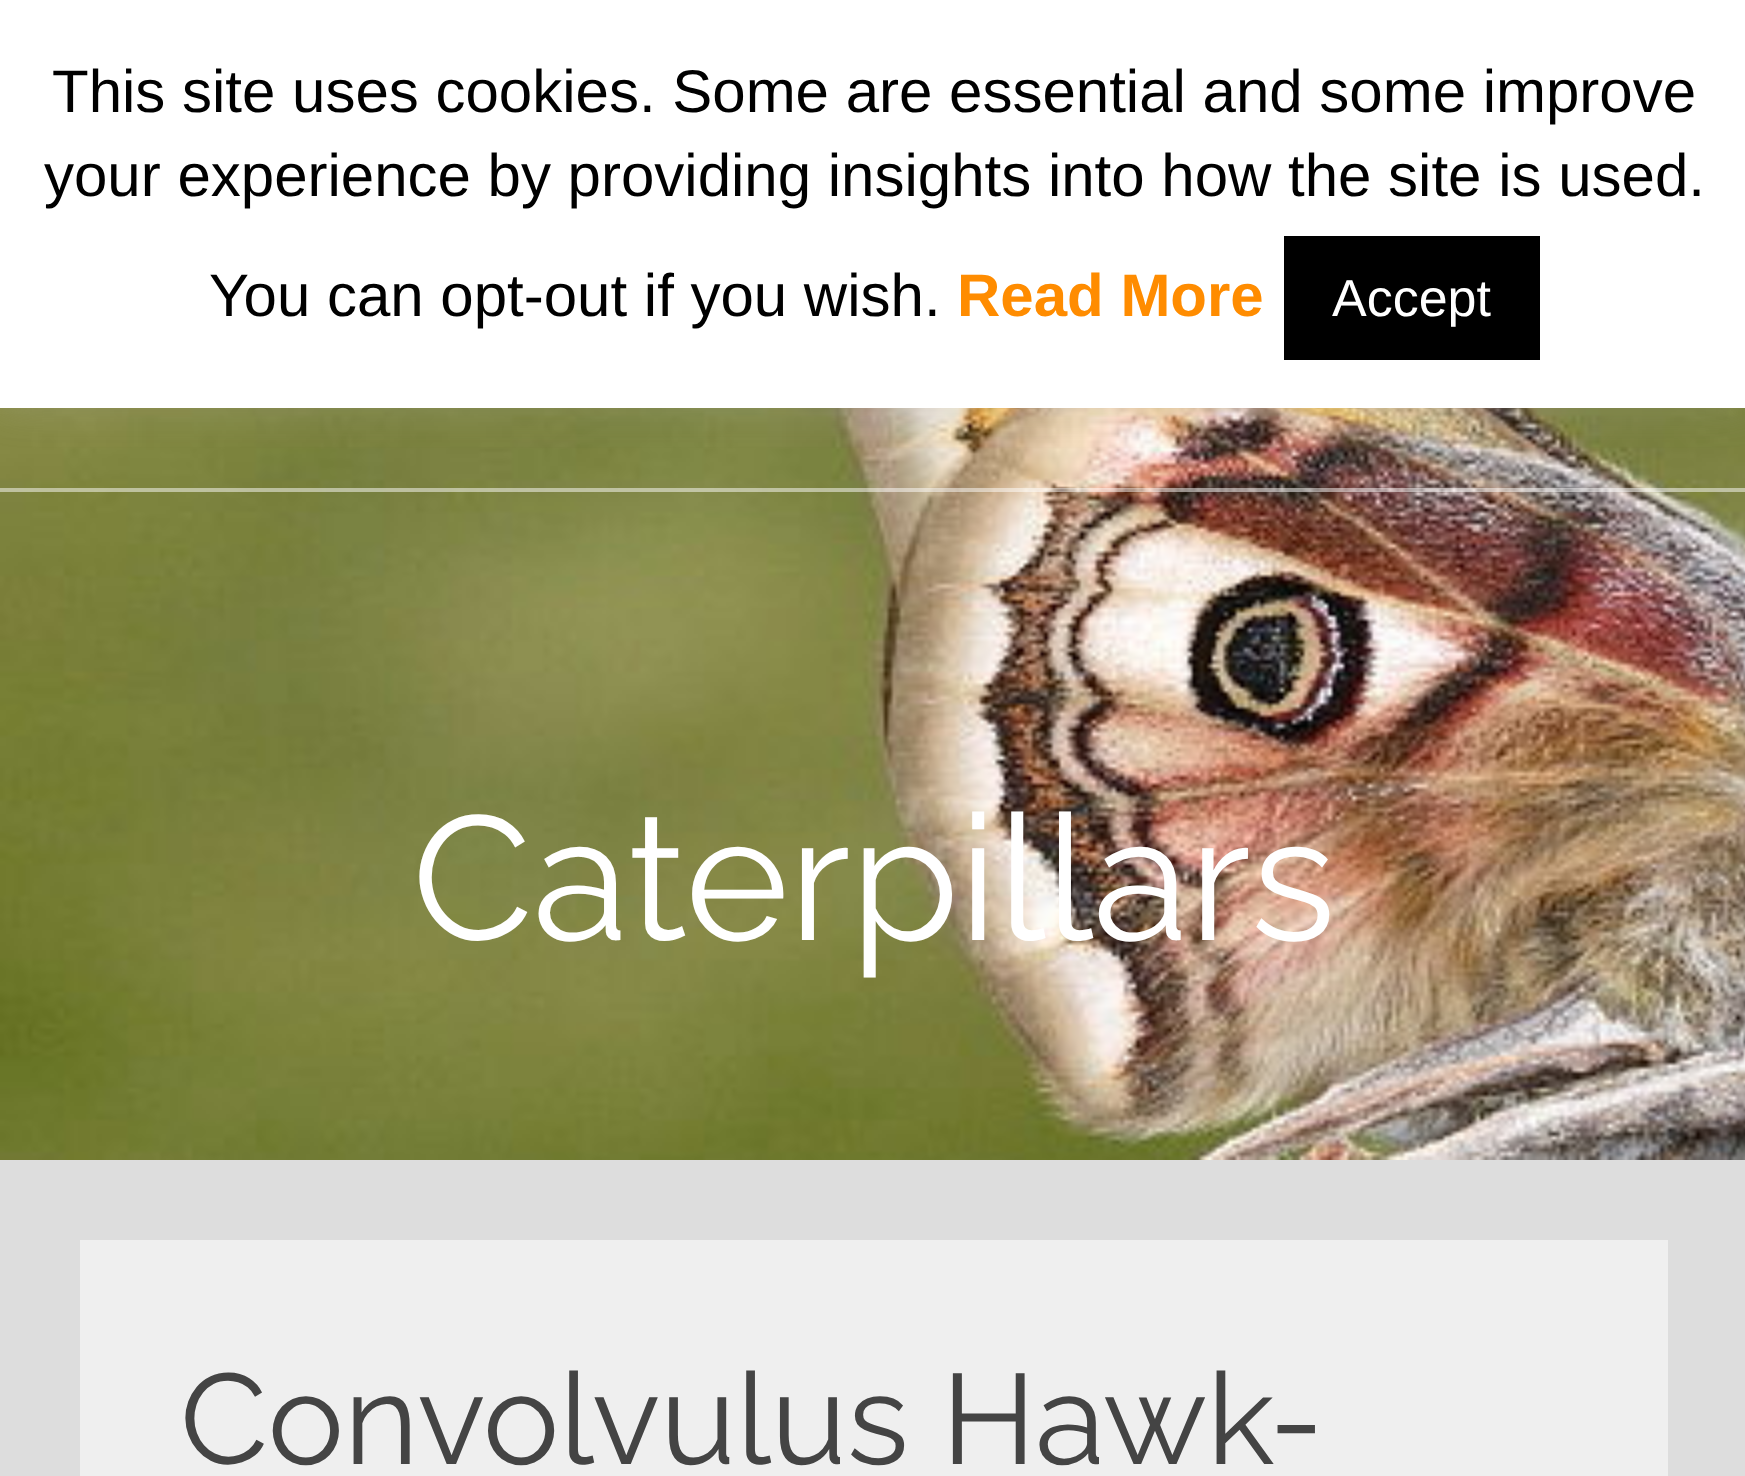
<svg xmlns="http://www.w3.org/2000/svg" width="1745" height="1476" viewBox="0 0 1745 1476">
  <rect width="100%" height="100%" fill="rgb(221,221,221)"/>
  <image x="0" y="408" width="1745" height="752" href="pic1.png"/>
  <rect x="0" y="-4" width="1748" height="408" fill="rgba(172,171,171,0.3)" filter="blur(20px)"/>
  <rect x="0" y="0" width="1745" height="408" fill="rgb(255,255,255)"/>
  <g font-family="Liberation Sans" font-size="60" fill="rgb(0,0,0)">
    <text x="52" y="112">This site uses cookies. Some are essential and some improve</text>
    <text x="44" y="196">your experience by providing insights into how the site is used.</text>
    <text x="209" y="316">You can opt-out if you wish.</text>
  </g>
  <text x="957" y="316" font-family="Liberation Sans" font-size="60" font-weight="bold" fill="rgb(255,140,0)">Read More</text>
  <rect x="1284" y="236" width="256" height="124" fill="rgb(0,0,0)"/>
  <text x="1332" y="316" font-family="Liberation Sans" font-size="52" fill="rgb(255,255,255)">Accept</text>
  <rect x="0" y="488" width="1745" height="4" fill="rgba(255,255,255,0.5)"/>
  <text x="412" y="940" font-family="Raleway" font-size="176" font-weight="100" fill="rgb(255,255,255)">Caterpillars</text>
  <rect x="80" y="1240" width="1588" height="236" fill="rgb(239,239,239)"/>
  <text x="180" y="1464" font-family="Raleway" font-size="128" font-weight="100" fill="rgb(68,68,68)">Convolvulus Hawk-</text>
</svg>
